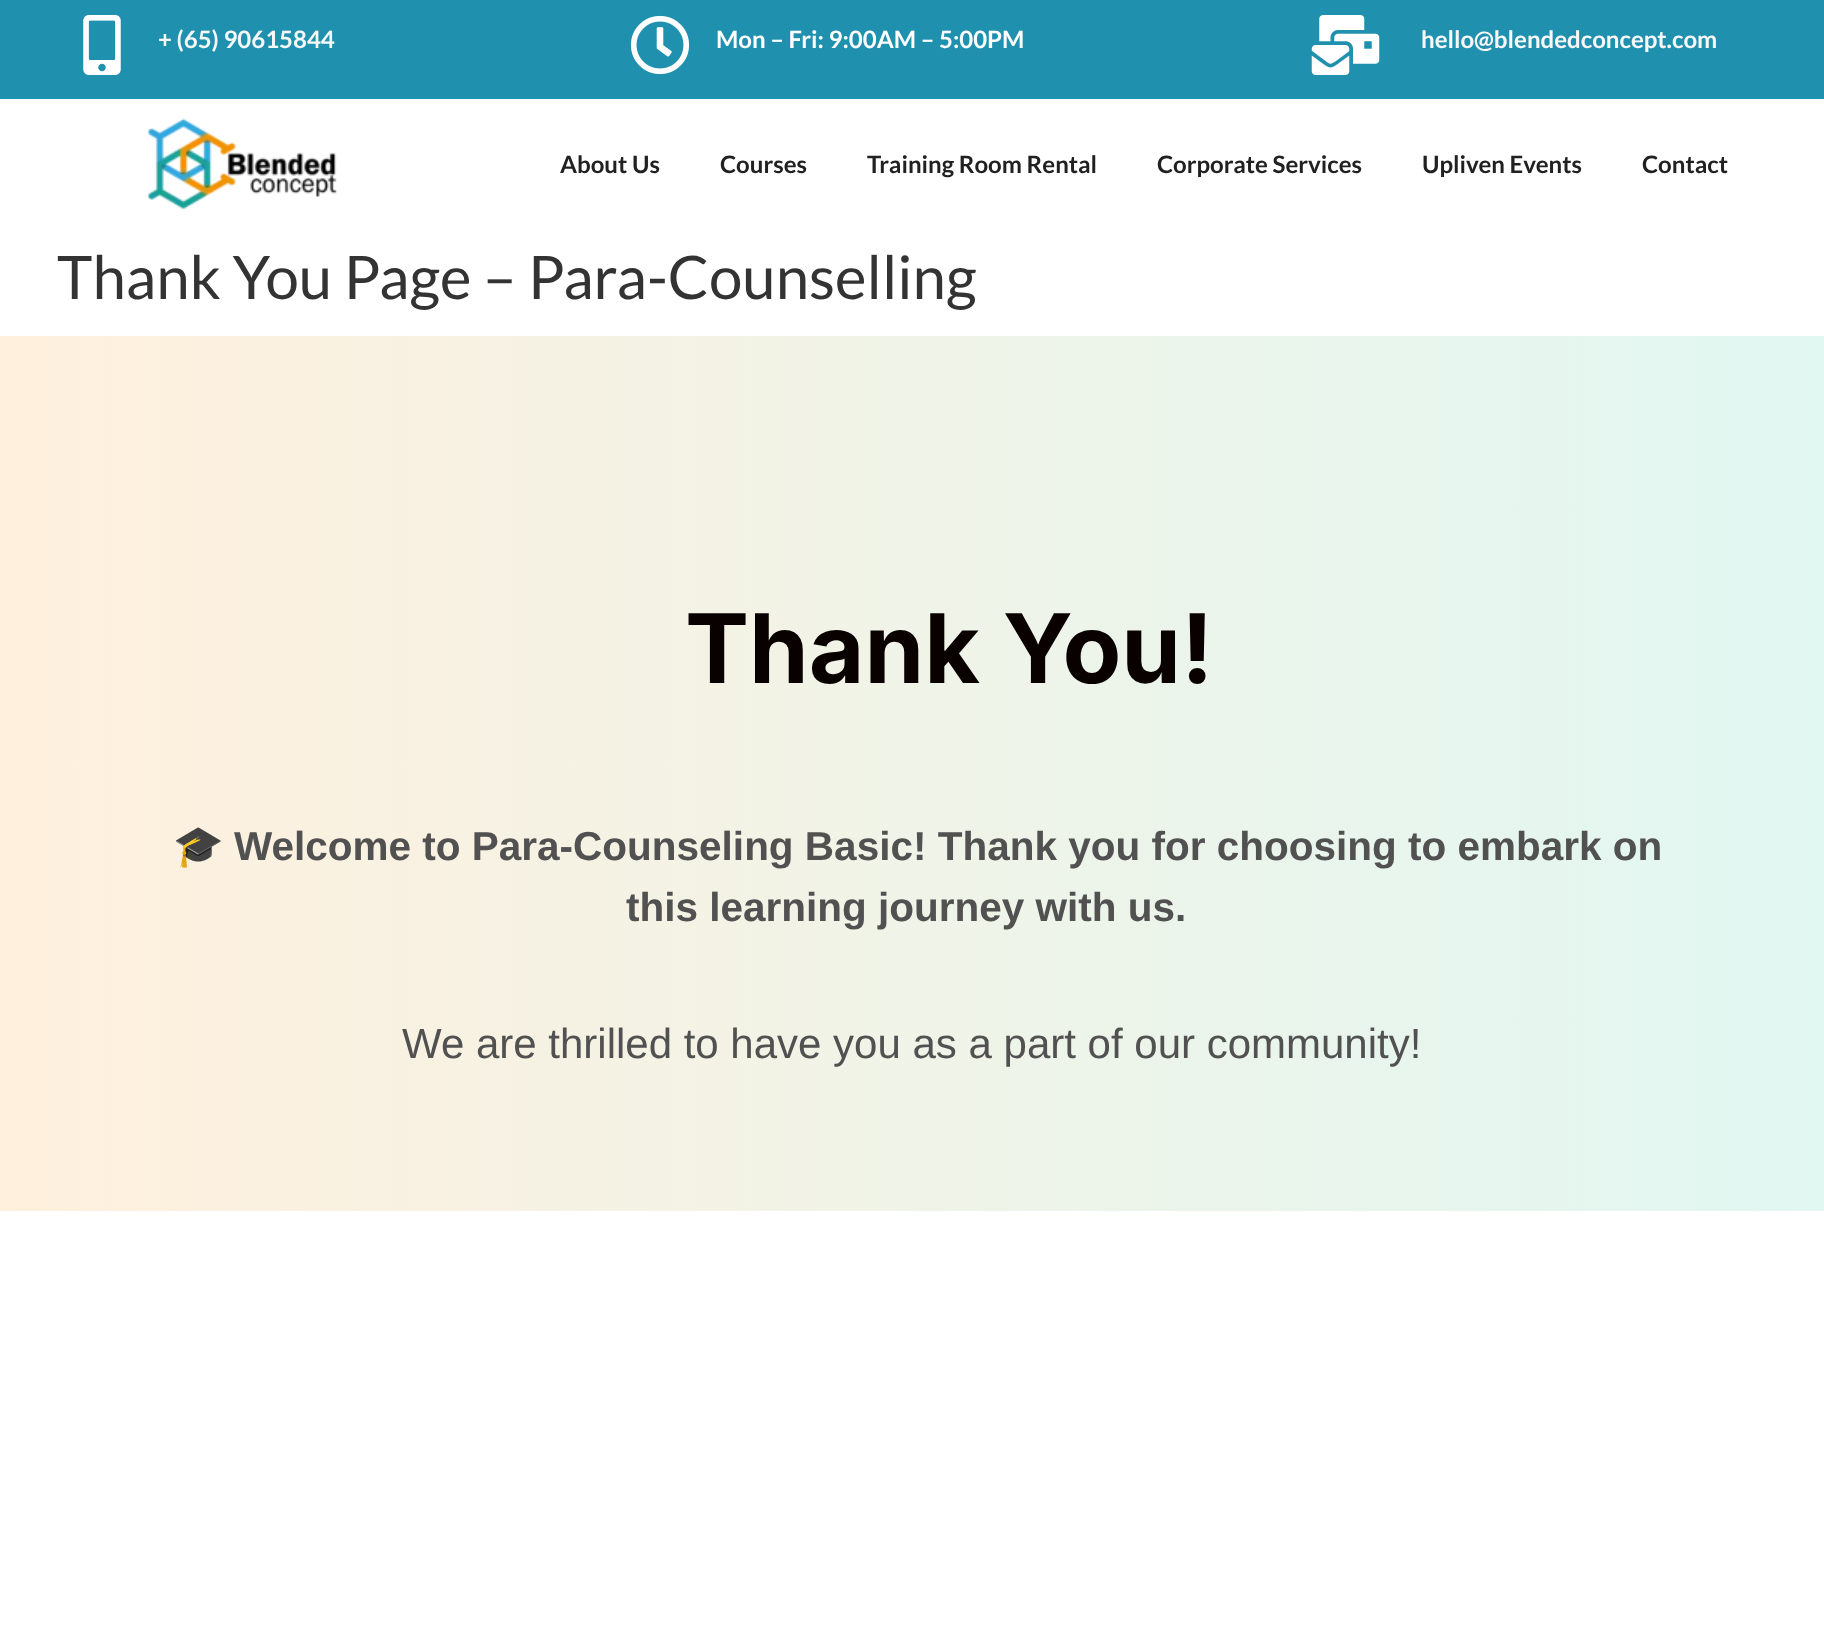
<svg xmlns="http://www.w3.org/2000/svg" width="1824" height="1643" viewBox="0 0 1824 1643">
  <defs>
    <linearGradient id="g1" gradientUnits="userSpaceOnUse" x1="1824" y1="773" x2="0" y2="773"><stop offset="0" stop-color="rgb(225,247,242)"/><stop offset="1" stop-color="rgb(255,240,221)"/></linearGradient>
  </defs>
  <rect width="100%" height="100%" fill="rgb(255,255,255)"/>
  <rect x="0" y="0" width="1824" height="99" fill="rgb(31,145,175)"/>
  <image x="83" y="15" width="38" height="60" href="pic1.png"/>
  <text x="158" y="48" font-family="Lato" font-size="24" font-weight="bold" fill="rgb(248,248,248)">+ (65) 90615844</text>
  <image x="630" y="15" width="60" height="60" href="pic2.png"/>
  <text x="716" y="48" font-family="Lato" font-size="24" font-weight="bold" fill="rgb(255,255,255)">Mon – Fri: 9:00AM – 5:00PM</text>
  <image x="1311" y="15" width="69" height="60" href="pic3.png"/>
  <text x="1421" y="48" font-family="Lato" font-size="24" font-weight="bold" fill="rgb(248,248,248)">hello@blendedconcept.com</text>
  <image x="147" y="118" width="190" height="92" href="pic4.png"/>
  <g font-family="Lato" font-size="24" font-weight="bold" fill="rgb(33,33,33)">
    <text x="560" y="173">About Us</text>
    <text x="720" y="173">Courses</text>
    <text x="867" y="173">Training Room Rental</text>
    <text x="1157" y="173">Corporate Services</text>
    <text x="1422" y="173">Upliven Events</text>
    <text x="1642" y="173">Contact</text>
  </g>
  <text x="57" y="299" font-family="Lato" font-size="60" fill="rgb(51,51,51)">Thank You Page – Para-Counselling</text>
  <rect x="0" y="336" width="1824" height="875" fill="url(#g1)"/>
  <text x="685" y="683" font-family="Inter" font-size="96" font-weight="bold" fill="rgb(9,0,0)">Thank You!</text>
  <text x="173" y="860" font-family="Noto Color Emoji" font-size="40.5" font-weight="bold" fill="rgb(81,81,81)">🎓</text>
  <g font-family="Liberation Sans" font-size="40.5" font-weight="bold" fill="rgb(81,81,81)">
    <text x="234" y="860">Welcome to Para-Counseling Basic! Thank you for choosing to embark on</text>
    <text x="626" y="921">this learning journey with us.</text>
  </g>
  <text x="402" y="1058" font-family="Liberation Sans" font-size="42" fill="rgb(81,81,81)">We are thrilled to have you as a part of our community!</text>
</svg>
